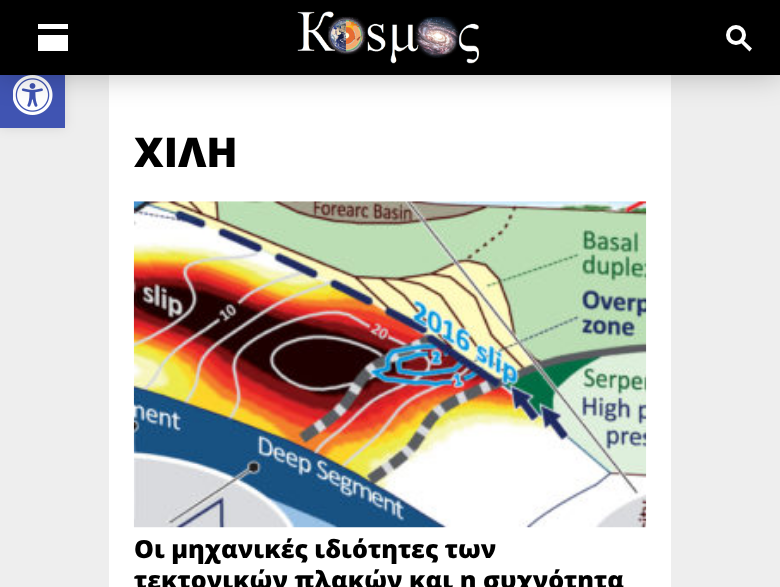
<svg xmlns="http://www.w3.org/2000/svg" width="780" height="587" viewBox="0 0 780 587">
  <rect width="100%" height="100%" fill="rgb(238,238,238)"/>
  <rect x="0" y="63" width="65" height="65" fill="rgba(0,0,0,0.1)" filter="blur(6px)"/>
  <rect x="0" y="75" width="65" height="53" fill="rgb(64,84,178)"/>
  <image x="13" y="75" width="40" height="40" href="pic2.png"/>
  <rect x="109" y="75" width="562" height="512" fill="rgb(255,255,255)"/>
  <rect x="0" y="0" width="780" height="75" fill="rgba(0,0,0,0.25)" filter="blur(15px)"/>
  <rect x="0" y="0" width="780" height="75" fill="rgb(0,0,0)"/>
  <rect x="38" y="24" width="30" height="5" fill="rgb(255,255,255)"/>
  <rect x="38" y="35" width="30" height="16" fill="rgb(255,255,255)"/>
  <image x="297" y="11" width="183" height="53" href="pic1.png"/>
  <circle cx="736" cy="35" r="8" fill="none" stroke="rgb(255,255,255)" stroke-width="4"/>
  <path d="M743 40L752 48.5L749.5 51.5L740.5 42.5Z" fill="rgb(255,255,255)"/>
  <text x="134" y="167" font-family="Open Sans" font-size="41" font-weight="800" fill="rgb(0,0,0)">ΧΙΛΗ</text>
  <image x="133" y="201" width="514" height="327" href="pic3.png"/>
  <g font-family="Open Sans" font-size="25" font-weight="800" fill="rgb(0,0,0)">
    <text>
      <tspan x="134" y="558">Οι μηχανικές ιδιότητες των</tspan>
      <tspan x="134" y="589">τεκτονικών πλακών και η συχνότητα</tspan>
    </text>
  </g>
</svg>
